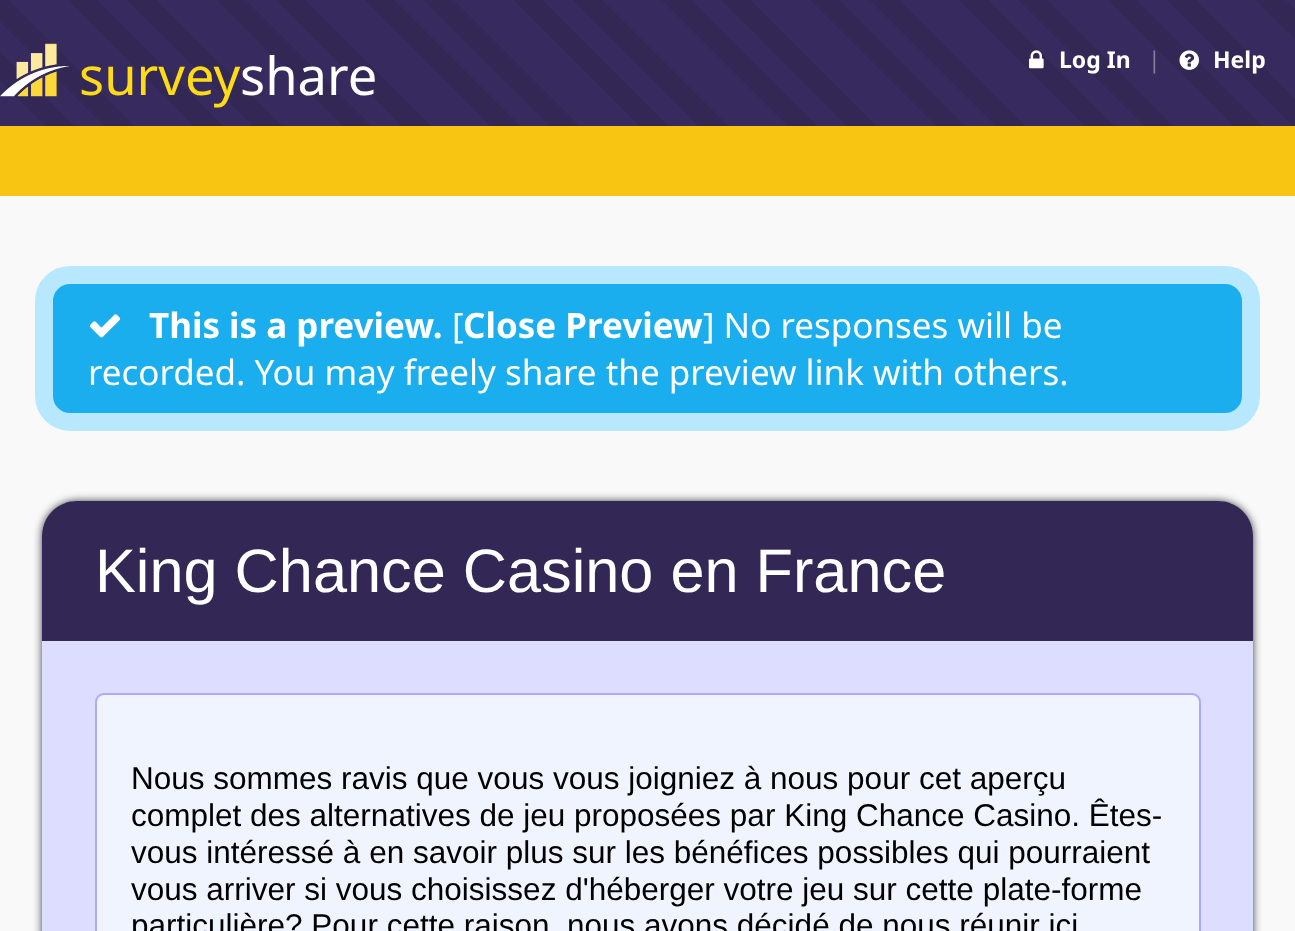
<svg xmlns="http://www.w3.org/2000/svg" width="1295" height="931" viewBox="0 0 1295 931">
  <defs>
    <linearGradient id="g1" gradientUnits="userSpaceOnUse" x1="-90" y1="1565" x2="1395" y2="80"><stop offset="0" stop-color="rgb(50,39,85)"/><stop offset="0.01" stop-color="rgb(50,39,85)"/><stop offset="0.01" stop-color="rgb(54,42,94)"/><stop offset="0.02" stop-color="rgb(54,42,94)"/><stop offset="0.02" stop-color="rgb(50,39,85)"/><stop offset="0.02" stop-color="rgb(50,39,85)"/><stop offset="0.02" stop-color="rgb(54,42,94)"/><stop offset="0.03" stop-color="rgb(54,42,94)"/><stop offset="0.03" stop-color="rgb(50,39,85)"/><stop offset="0.04" stop-color="rgb(50,39,85)"/><stop offset="0.04" stop-color="rgb(54,42,94)"/><stop offset="0.05" stop-color="rgb(54,42,94)"/><stop offset="0.05" stop-color="rgb(50,39,85)"/><stop offset="0.06" stop-color="rgb(50,39,85)"/><stop offset="0.06" stop-color="rgb(54,42,94)"/><stop offset="0.07" stop-color="rgb(54,42,94)"/><stop offset="0.07" stop-color="rgb(50,39,85)"/><stop offset="0.07" stop-color="rgb(50,39,85)"/><stop offset="0.07" stop-color="rgb(54,42,94)"/><stop offset="0.08" stop-color="rgb(54,42,94)"/><stop offset="0.08" stop-color="rgb(50,39,85)"/><stop offset="0.09" stop-color="rgb(50,39,85)"/><stop offset="0.09" stop-color="rgb(54,42,94)"/><stop offset="0.1" stop-color="rgb(54,42,94)"/><stop offset="0.1" stop-color="rgb(50,39,85)"/><stop offset="0.11" stop-color="rgb(50,39,85)"/><stop offset="0.11" stop-color="rgb(54,42,94)"/><stop offset="0.12" stop-color="rgb(54,42,94)"/><stop offset="0.12" stop-color="rgb(50,39,85)"/><stop offset="0.12" stop-color="rgb(50,39,85)"/><stop offset="0.12" stop-color="rgb(54,42,94)"/><stop offset="0.13" stop-color="rgb(54,42,94)"/><stop offset="0.13" stop-color="rgb(50,39,85)"/><stop offset="0.14" stop-color="rgb(50,39,85)"/><stop offset="0.14" stop-color="rgb(54,42,94)"/><stop offset="0.15" stop-color="rgb(54,42,94)"/><stop offset="0.15" stop-color="rgb(50,39,85)"/><stop offset="0.16" stop-color="rgb(50,39,85)"/><stop offset="0.16" stop-color="rgb(54,42,94)"/><stop offset="0.17" stop-color="rgb(54,42,94)"/><stop offset="0.17" stop-color="rgb(50,39,85)"/><stop offset="0.17" stop-color="rgb(50,39,85)"/><stop offset="0.17" stop-color="rgb(54,42,94)"/><stop offset="0.18" stop-color="rgb(54,42,94)"/><stop offset="0.18" stop-color="rgb(50,39,85)"/><stop offset="0.19" stop-color="rgb(50,39,85)"/><stop offset="0.19" stop-color="rgb(54,42,94)"/><stop offset="0.2" stop-color="rgb(54,42,94)"/><stop offset="0.2" stop-color="rgb(50,39,85)"/><stop offset="0.21" stop-color="rgb(50,39,85)"/><stop offset="0.21" stop-color="rgb(54,42,94)"/><stop offset="0.22" stop-color="rgb(54,42,94)"/><stop offset="0.22" stop-color="rgb(50,39,85)"/><stop offset="0.22" stop-color="rgb(50,39,85)"/><stop offset="0.22" stop-color="rgb(54,42,94)"/><stop offset="0.23" stop-color="rgb(54,42,94)"/><stop offset="0.23" stop-color="rgb(50,39,85)"/><stop offset="0.24" stop-color="rgb(50,39,85)"/><stop offset="0.24" stop-color="rgb(54,42,94)"/><stop offset="0.25" stop-color="rgb(54,42,94)"/><stop offset="0.25" stop-color="rgb(50,39,85)"/><stop offset="0.26" stop-color="rgb(50,39,85)"/><stop offset="0.26" stop-color="rgb(54,42,94)"/><stop offset="0.27" stop-color="rgb(54,42,94)"/><stop offset="0.27" stop-color="rgb(50,39,85)"/><stop offset="0.27" stop-color="rgb(50,39,85)"/><stop offset="0.27" stop-color="rgb(54,42,94)"/><stop offset="0.28" stop-color="rgb(54,42,94)"/><stop offset="0.28" stop-color="rgb(50,39,85)"/><stop offset="0.29" stop-color="rgb(50,39,85)"/><stop offset="0.29" stop-color="rgb(54,42,94)"/><stop offset="0.3" stop-color="rgb(54,42,94)"/><stop offset="0.3" stop-color="rgb(50,39,85)"/><stop offset="0.31" stop-color="rgb(50,39,85)"/><stop offset="0.31" stop-color="rgb(54,42,94)"/><stop offset="0.32" stop-color="rgb(54,42,94)"/><stop offset="0.32" stop-color="rgb(50,39,85)"/><stop offset="0.32" stop-color="rgb(50,39,85)"/><stop offset="0.32" stop-color="rgb(54,42,94)"/><stop offset="0.33" stop-color="rgb(54,42,94)"/><stop offset="0.33" stop-color="rgb(50,39,85)"/><stop offset="0.34" stop-color="rgb(50,39,85)"/><stop offset="0.34" stop-color="rgb(54,42,94)"/><stop offset="0.35" stop-color="rgb(54,42,94)"/><stop offset="0.35" stop-color="rgb(50,39,85)"/><stop offset="0.36" stop-color="rgb(50,39,85)"/><stop offset="0.36" stop-color="rgb(54,42,94)"/><stop offset="0.37" stop-color="rgb(54,42,94)"/><stop offset="0.37" stop-color="rgb(50,39,85)"/><stop offset="0.37" stop-color="rgb(50,39,85)"/><stop offset="0.37" stop-color="rgb(54,42,94)"/><stop offset="0.38" stop-color="rgb(54,42,94)"/><stop offset="0.38" stop-color="rgb(50,39,85)"/><stop offset="0.39" stop-color="rgb(50,39,85)"/><stop offset="0.39" stop-color="rgb(54,42,94)"/><stop offset="0.4" stop-color="rgb(54,42,94)"/><stop offset="0.4" stop-color="rgb(50,39,85)"/><stop offset="0.41" stop-color="rgb(50,39,85)"/><stop offset="0.41" stop-color="rgb(54,42,94)"/><stop offset="0.42" stop-color="rgb(54,42,94)"/><stop offset="0.42" stop-color="rgb(50,39,85)"/><stop offset="0.42" stop-color="rgb(50,39,85)"/><stop offset="0.42" stop-color="rgb(54,42,94)"/><stop offset="0.43" stop-color="rgb(54,42,94)"/><stop offset="0.43" stop-color="rgb(50,39,85)"/><stop offset="0.44" stop-color="rgb(50,39,85)"/><stop offset="0.44" stop-color="rgb(54,42,94)"/><stop offset="0.45" stop-color="rgb(54,42,94)"/><stop offset="0.45" stop-color="rgb(50,39,85)"/><stop offset="0.46" stop-color="rgb(50,39,85)"/><stop offset="0.46" stop-color="rgb(54,42,94)"/><stop offset="0.47" stop-color="rgb(54,42,94)"/><stop offset="0.47" stop-color="rgb(50,39,85)"/><stop offset="0.47" stop-color="rgb(50,39,85)"/><stop offset="0.47" stop-color="rgb(54,42,94)"/><stop offset="0.48" stop-color="rgb(54,42,94)"/><stop offset="0.48" stop-color="rgb(50,39,85)"/><stop offset="0.49" stop-color="rgb(50,39,85)"/><stop offset="0.49" stop-color="rgb(54,42,94)"/><stop offset="0.5" stop-color="rgb(54,42,94)"/><stop offset="0.5" stop-color="rgb(50,39,85)"/><stop offset="0.51" stop-color="rgb(50,39,85)"/><stop offset="0.51" stop-color="rgb(54,42,94)"/><stop offset="0.52" stop-color="rgb(54,42,94)"/><stop offset="0.52" stop-color="rgb(50,39,85)"/><stop offset="0.52" stop-color="rgb(50,39,85)"/><stop offset="0.52" stop-color="rgb(54,42,94)"/><stop offset="0.53" stop-color="rgb(54,42,94)"/><stop offset="0.53" stop-color="rgb(50,39,85)"/><stop offset="0.54" stop-color="rgb(50,39,85)"/><stop offset="0.54" stop-color="rgb(54,42,94)"/><stop offset="0.55" stop-color="rgb(54,42,94)"/><stop offset="0.55" stop-color="rgb(50,39,85)"/><stop offset="0.56" stop-color="rgb(50,39,85)"/><stop offset="0.56" stop-color="rgb(54,42,94)"/><stop offset="0.57" stop-color="rgb(54,42,94)"/><stop offset="0.57" stop-color="rgb(50,39,85)"/><stop offset="0.57" stop-color="rgb(50,39,85)"/><stop offset="0.57" stop-color="rgb(54,42,94)"/><stop offset="0.58" stop-color="rgb(54,42,94)"/><stop offset="0.58" stop-color="rgb(50,39,85)"/><stop offset="0.59" stop-color="rgb(50,39,85)"/><stop offset="0.59" stop-color="rgb(54,42,94)"/><stop offset="0.6" stop-color="rgb(54,42,94)"/><stop offset="0.6" stop-color="rgb(50,39,85)"/><stop offset="0.61" stop-color="rgb(50,39,85)"/><stop offset="0.61" stop-color="rgb(54,42,94)"/><stop offset="0.62" stop-color="rgb(54,42,94)"/><stop offset="0.62" stop-color="rgb(50,39,85)"/><stop offset="0.62" stop-color="rgb(50,39,85)"/><stop offset="0.62" stop-color="rgb(54,42,94)"/><stop offset="0.63" stop-color="rgb(54,42,94)"/><stop offset="0.63" stop-color="rgb(50,39,85)"/><stop offset="0.64" stop-color="rgb(50,39,85)"/><stop offset="0.64" stop-color="rgb(54,42,94)"/><stop offset="0.65" stop-color="rgb(54,42,94)"/><stop offset="0.65" stop-color="rgb(50,39,85)"/><stop offset="0.66" stop-color="rgb(50,39,85)"/><stop offset="0.66" stop-color="rgb(54,42,94)"/><stop offset="0.67" stop-color="rgb(54,42,94)"/><stop offset="0.67" stop-color="rgb(50,39,85)"/><stop offset="0.67" stop-color="rgb(50,39,85)"/><stop offset="0.67" stop-color="rgb(54,42,94)"/><stop offset="0.68" stop-color="rgb(54,42,94)"/><stop offset="0.68" stop-color="rgb(50,39,85)"/><stop offset="0.69" stop-color="rgb(50,39,85)"/><stop offset="0.69" stop-color="rgb(54,42,94)"/><stop offset="0.7" stop-color="rgb(54,42,94)"/><stop offset="0.7" stop-color="rgb(50,39,85)"/><stop offset="0.71" stop-color="rgb(50,39,85)"/><stop offset="0.71" stop-color="rgb(54,42,94)"/><stop offset="0.72" stop-color="rgb(54,42,94)"/><stop offset="0.72" stop-color="rgb(50,39,85)"/><stop offset="0.72" stop-color="rgb(50,39,85)"/><stop offset="0.72" stop-color="rgb(54,42,94)"/><stop offset="0.73" stop-color="rgb(54,42,94)"/><stop offset="0.73" stop-color="rgb(50,39,85)"/><stop offset="0.74" stop-color="rgb(50,39,85)"/><stop offset="0.74" stop-color="rgb(54,42,94)"/><stop offset="0.75" stop-color="rgb(54,42,94)"/><stop offset="0.75" stop-color="rgb(50,39,85)"/><stop offset="0.76" stop-color="rgb(50,39,85)"/><stop offset="0.76" stop-color="rgb(54,42,94)"/><stop offset="0.77" stop-color="rgb(54,42,94)"/><stop offset="0.77" stop-color="rgb(50,39,85)"/><stop offset="0.77" stop-color="rgb(50,39,85)"/><stop offset="0.77" stop-color="rgb(54,42,94)"/><stop offset="0.78" stop-color="rgb(54,42,94)"/><stop offset="0.78" stop-color="rgb(50,39,85)"/><stop offset="0.79" stop-color="rgb(50,39,85)"/><stop offset="0.79" stop-color="rgb(54,42,94)"/><stop offset="0.8" stop-color="rgb(54,42,94)"/><stop offset="0.8" stop-color="rgb(50,39,85)"/><stop offset="0.81" stop-color="rgb(50,39,85)"/><stop offset="0.81" stop-color="rgb(54,42,94)"/><stop offset="0.82" stop-color="rgb(54,42,94)"/><stop offset="0.82" stop-color="rgb(50,39,85)"/><stop offset="0.82" stop-color="rgb(50,39,85)"/><stop offset="0.82" stop-color="rgb(54,42,94)"/><stop offset="0.83" stop-color="rgb(54,42,94)"/><stop offset="0.83" stop-color="rgb(50,39,85)"/><stop offset="0.84" stop-color="rgb(50,39,85)"/><stop offset="0.84" stop-color="rgb(54,42,94)"/><stop offset="0.85" stop-color="rgb(54,42,94)"/><stop offset="0.85" stop-color="rgb(50,39,85)"/><stop offset="0.86" stop-color="rgb(50,39,85)"/><stop offset="0.86" stop-color="rgb(54,42,94)"/><stop offset="0.87" stop-color="rgb(54,42,94)"/><stop offset="0.87" stop-color="rgb(50,39,85)"/><stop offset="0.87" stop-color="rgb(50,39,85)"/><stop offset="0.87" stop-color="rgb(54,42,94)"/><stop offset="0.88" stop-color="rgb(54,42,94)"/><stop offset="0.88" stop-color="rgb(50,39,85)"/><stop offset="0.89" stop-color="rgb(50,39,85)"/><stop offset="0.89" stop-color="rgb(54,42,94)"/><stop offset="0.9" stop-color="rgb(54,42,94)"/><stop offset="0.9" stop-color="rgb(50,39,85)"/><stop offset="0.91" stop-color="rgb(50,39,85)"/><stop offset="0.91" stop-color="rgb(54,42,94)"/><stop offset="0.92" stop-color="rgb(54,42,94)"/><stop offset="0.92" stop-color="rgb(50,39,85)"/><stop offset="0.92" stop-color="rgb(50,39,85)"/><stop offset="0.92" stop-color="rgb(54,42,94)"/><stop offset="0.93" stop-color="rgb(54,42,94)"/><stop offset="0.93" stop-color="rgb(50,39,85)"/><stop offset="0.94" stop-color="rgb(50,39,85)"/><stop offset="0.94" stop-color="rgb(54,42,94)"/><stop offset="0.95" stop-color="rgb(54,42,94)"/><stop offset="0.95" stop-color="rgb(50,39,85)"/><stop offset="0.96" stop-color="rgb(50,39,85)"/><stop offset="0.96" stop-color="rgb(54,42,94)"/><stop offset="0.97" stop-color="rgb(54,42,94)"/><stop offset="0.97" stop-color="rgb(50,39,85)"/><stop offset="0.97" stop-color="rgb(50,39,85)"/><stop offset="0.97" stop-color="rgb(54,42,94)"/><stop offset="0.98" stop-color="rgb(54,42,94)"/><stop offset="0.98" stop-color="rgb(50,39,85)"/><stop offset="0.99" stop-color="rgb(50,39,85)"/><stop offset="0.99" stop-color="rgb(54,42,94)"/><stop offset="1" stop-color="rgb(54,42,94)"/></linearGradient>
  </defs>
  <rect width="100%" height="100%" fill="rgb(255,255,255)"/>
  <rect x="0" y="0" width="1295" height="126" fill="url(#g1)"/>
  <image x="0" y="43" width="70" height="54" href="pic1.png"/>
  <text x="79" y="95" font-family="Noto Sans" font-size="52.5" fill="rgb(254,219,22)">survey</text>
  <text x="240" y="95" font-family="Noto Sans" font-size="52.5" fill="rgb(255,255,255)">share</text>
  <image x="1029" y="50" width="15" height="19" href="pic2.png"/>
  <text x="1059" y="68" font-family="Noto Sans" font-size="23" font-weight="bold" fill="rgb(255,255,255)">Log In</text>
  <text x="1148" y="68" font-family="Noto Sans" font-size="23" fill="rgb(134,127,158)">|</text>
  <image x="1179" y="50" width="20" height="20" href="pic3.png"/>
  <text x="1213" y="68" font-family="Noto Sans" font-size="23" font-weight="bold" fill="rgb(255,255,255)">Help</text>
  <rect x="0" y="126" width="1295" height="70" fill="rgb(247,197,18)"/>
  <rect x="0" y="196" width="1295" height="735" fill="rgb(249,249,249)"/>
  <rect x="44" y="275" width="1207" height="147" rx="26" fill="rgb(26,174,239)" stroke="rgb(184,232,253)" stroke-width="18"/>
  <image x="89" y="314" width="32" height="24" href="pic4.png"/>
  <text x="149" y="338" font-family="Noto Sans" font-size="35" font-weight="bold" fill="rgb(255,255,255)">This is a preview.</text>
  <text x="452" y="338" font-family="Noto Sans" font-size="35" fill="rgb(255,255,255)">[</text>
  <text x="463" y="338" font-family="Noto Sans" font-size="35" font-weight="bold" fill="rgb(255,255,255)">Close Preview</text>
  <g font-family="Noto Sans" font-size="35" fill="rgb(255,255,255)">
    <text x="703" y="338">] No responses will be</text>
    <text x="88" y="385">recorded. You may freely share the preview link with others.</text>
  </g>
  <rect x="42" y="501" width="1211" height="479" rx="35" fill="rgba(0,0,0,0.75)" filter="blur(4.5px)"/>
  <rect x="42" y="501" width="1211" height="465" rx="35" fill="rgb(221,221,255)"/>
  <path d="M77 501H1218C1237.5 501 1253 516.5 1253 536V641H42V536C42 516.5 57.5 501 77 501Z" fill="rgb(50,39,85)"/>
  <text x="95" y="592" font-family="Liberation Sans" font-size="61.25" fill="rgb(255,255,255)">King Chance Casino en France</text>
  <rect x="96" y="694" width="1104" height="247" rx="8" fill="rgb(240,244,255)" stroke="rgb(170,170,255)" stroke-width="2"/>
  <g font-family="Liberation Sans" font-size="31.5" fill="rgb(0,0,0)">
    <text>
      <tspan x="131" y="789">Nous sommes ravis que vous vous joigniez à nous pour cet aperçu</tspan>
      <tspan x="131" y="826">complet des alternatives de jeu proposées par King Chance Casino. Êtes-</tspan>
      <tspan x="131" y="863">vous intéressé à en savoir plus sur les bénéfices possibles qui pourraient</tspan>
      <tspan x="131" y="900">vous arriver si vous choisissez d'héberger votre jeu sur cette plate-forme</tspan>
      <tspan x="131" y="936">particulière? Pour cette raison, nous avons décidé de nous réunir ici</tspan>
    </text>
  </g>
</svg>
